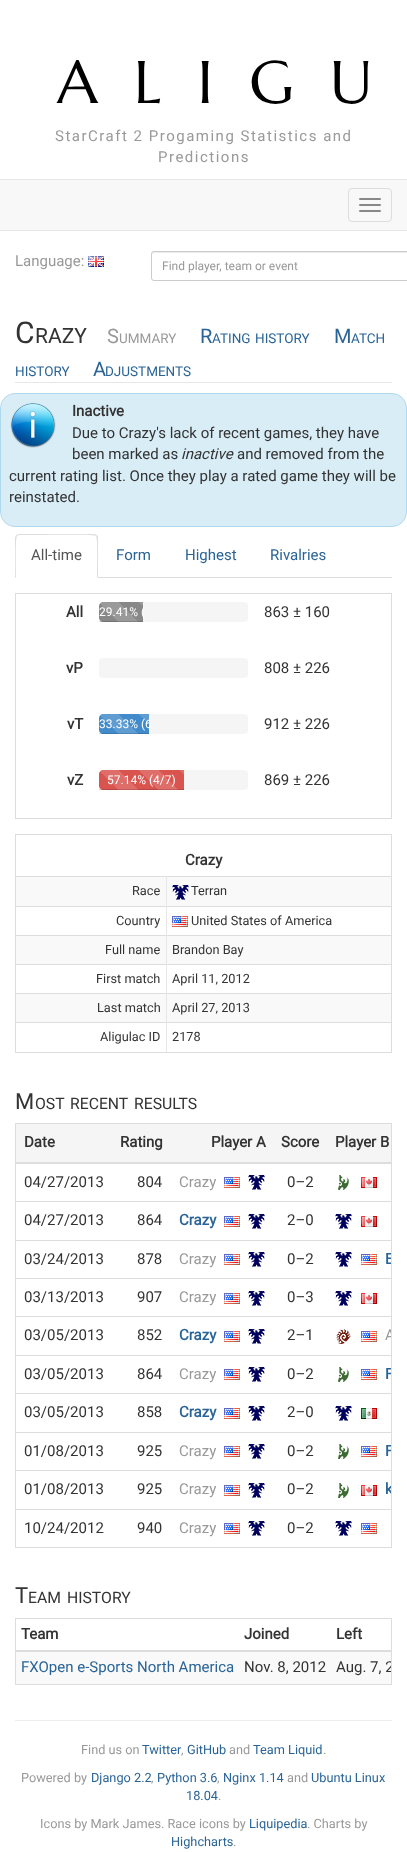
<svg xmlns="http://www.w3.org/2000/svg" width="407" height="1852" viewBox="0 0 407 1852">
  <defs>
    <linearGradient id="g1" gradientUnits="userSpaceOnUse" x1="99" y1="642" x2="139" y2="602"><stop offset="0.25" stop-color="rgb(255,255,255)" stop-opacity="0.15"/><stop offset="0.25" stop-color="rgb(255,255,255)" stop-opacity="0"/><stop offset="0.5" stop-color="rgb(255,255,255)" stop-opacity="0"/><stop offset="0.5" stop-color="rgb(255,255,255)" stop-opacity="0.15"/><stop offset="0.75" stop-color="rgb(255,255,255)" stop-opacity="0.15"/><stop offset="0.75" stop-color="rgb(255,255,255)" stop-opacity="0"/><stop offset="1" stop-color="rgb(0,0,0)" stop-opacity="0"/></linearGradient>
    <linearGradient id="g2" gradientUnits="userSpaceOnUse" x1="139" y1="642" x2="179" y2="602"><stop offset="0.25" stop-color="rgb(154,154,154)"/><stop offset="0.25" stop-color="rgb(136,136,136)"/><stop offset="0.5" stop-color="rgb(136,136,136)"/><stop offset="0.5" stop-color="rgb(154,154,154)"/><stop offset="0.75" stop-color="rgb(154,154,154)"/><stop offset="0.75" stop-color="rgb(136,136,136)"/><stop offset="1" stop-color="rgb(136,136,136)"/></linearGradient>
    <linearGradient id="g3" gradientUnits="userSpaceOnUse" x1="99" y1="754" x2="139" y2="714"><stop offset="0.25" stop-color="rgb(255,255,255)" stop-opacity="0.15"/><stop offset="0.25" stop-color="rgb(255,255,255)" stop-opacity="0"/><stop offset="0.5" stop-color="rgb(255,255,255)" stop-opacity="0"/><stop offset="0.5" stop-color="rgb(255,255,255)" stop-opacity="0.15"/><stop offset="0.75" stop-color="rgb(255,255,255)" stop-opacity="0.15"/><stop offset="0.75" stop-color="rgb(255,255,255)" stop-opacity="0"/><stop offset="1" stop-color="rgb(0,0,0)" stop-opacity="0"/></linearGradient>
    <linearGradient id="g4" gradientUnits="userSpaceOnUse" x1="139" y1="754" x2="179" y2="714"><stop offset="0.25" stop-color="rgb(94,156,210)"/><stop offset="0.25" stop-color="rgb(66,139,202)"/><stop offset="0.5" stop-color="rgb(66,139,202)"/><stop offset="0.5" stop-color="rgb(94,156,210)"/><stop offset="0.75" stop-color="rgb(94,156,210)"/><stop offset="0.75" stop-color="rgb(66,139,202)"/><stop offset="1" stop-color="rgb(66,139,202)"/></linearGradient>
    <linearGradient id="g5" gradientUnits="userSpaceOnUse" x1="99" y1="810" x2="139" y2="770"><stop offset="0.25" stop-color="rgb(255,255,255)" stop-opacity="0.15"/><stop offset="0.25" stop-color="rgb(255,255,255)" stop-opacity="0"/><stop offset="0.5" stop-color="rgb(255,255,255)" stop-opacity="0"/><stop offset="0.5" stop-color="rgb(255,255,255)" stop-opacity="0.15"/><stop offset="0.75" stop-color="rgb(255,255,255)" stop-opacity="0.15"/><stop offset="0.75" stop-color="rgb(255,255,255)" stop-opacity="0"/><stop offset="1" stop-color="rgb(0,0,0)" stop-opacity="0"/></linearGradient>
    <linearGradient id="g6" gradientUnits="userSpaceOnUse" x1="139" y1="810" x2="179" y2="770"><stop offset="0.25" stop-color="rgb(223,109,105)"/><stop offset="0.25" stop-color="rgb(217,83,79)"/><stop offset="0.5" stop-color="rgb(217,83,79)"/><stop offset="0.5" stop-color="rgb(223,109,105)"/><stop offset="0.75" stop-color="rgb(223,109,105)"/><stop offset="0.75" stop-color="rgb(217,83,79)"/><stop offset="1" stop-color="rgb(217,83,79)"/></linearGradient>
    <linearGradient id="g7" gradientUnits="userSpaceOnUse" x1="179" y1="810" x2="219" y2="770"><stop offset="0.25" stop-color="rgb(223,109,105)"/><stop offset="0.25" stop-color="rgb(217,83,79)"/><stop offset="0.5" stop-color="rgb(217,83,79)"/><stop offset="0.5" stop-color="rgb(223,109,105)"/><stop offset="0.75" stop-color="rgb(223,109,105)"/><stop offset="0.75" stop-color="rgb(217,83,79)"/><stop offset="1" stop-color="rgb(217,83,79)"/></linearGradient>
    <clipPath id="clip1"><rect x="16" y="1124" width="375" height="423"/></clipPath>
    <clipPath id="clip2"><rect x="16" y="1619" width="375" height="65"/></clipPath>
  </defs>
  <rect width="100%" height="100%" fill="rgb(255,255,255)"/>
  <text x="57" y="103" font-family="Marcellus SC" font-size="60" letter-spacing="36" fill="rgb(0,0,0)">ALIGU</text>
  <g font-family="Roboto" font-size="15" letter-spacing="1.5" fill="rgb(153,153,153)">
    <text x="55" y="141">StarCraft 2 Progaming Statistics and</text>
    <text x="158" y="162">Predictions</text>
  </g>
  <rect x="0" y="180" width="407" height="50" fill="rgb(248,248,248)"/>
  <rect x="0" y="179" width="407" height="1" fill="rgb(231,231,231)"/>
  <rect x="0" y="230" width="407" height="1" fill="rgb(231,231,231)"/>
  <rect x="348.5" y="188.5" width="43" height="33" rx="3.5" fill="none" stroke="rgb(221,221,221)"/>
  <rect x="359" y="198" width="22" height="2" rx="1" fill="rgb(136,136,136)"/>
  <rect x="359" y="204" width="22" height="2" rx="1" fill="rgb(136,136,136)"/>
  <rect x="359" y="210" width="22" height="2" rx="1" fill="rgb(136,136,136)"/>
  <text x="15" y="266" font-family="Roboto" font-size="15" fill="rgb(153,153,153)">Language:</text>
  <image x="88" y="256" width="16" height="11" href="pic1.png"/>
  <path d="M154 253H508C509 253 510 254 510 255C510 254 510 252 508 252H154C152 252 152 254 152 255C152 254 153 253 154 253Z" fill="rgb(236,236,236)"/>
  <rect x="151.5" y="251.5" width="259" height="29" rx="2.5" fill="none" stroke="rgb(204,204,204)"/>
  <text x="162" y="270" font-family="Roboto" font-size="12" fill="rgb(153,153,153)">Find player, team or event</text>
  <rect x="15" y="382" width="377" height="1" fill="rgb(231,231,231)"/>
  <text x="15" y="343" font-family="Roboto" font-size="30" fill="rgb(51,51,51)">C</text>
  <text x="35" y="343" font-family="Roboto" font-size="21" fill="rgb(51,51,51)">RAZY</text>
  <text x="107" y="343" font-family="Roboto" font-size="20" fill="rgb(153,153,153)">S</text>
  <text x="119" y="343" font-family="Roboto" font-size="13.5" fill="rgb(153,153,153)">UMMARY</text>
  <text x="200" y="343" font-family="Roboto" font-size="20" fill="rgb(42,100,150)">R</text>
  <g font-family="Roboto" font-size="13.5" fill="rgb(42,100,150)">
    <text x="212" y="343">ATING</text>
    <text x="255" y="343">HISTORY</text>
  </g>
  <text x="334" y="343" font-family="Roboto" font-size="20" fill="rgb(42,100,150)">M</text>
  <g font-family="Roboto" font-size="13.5" fill="rgb(42,100,150)">
    <text x="351" y="343">ATCH</text>
    <text x="15" y="376">HISTORY</text>
  </g>
  <text x="93" y="376" font-family="Roboto" font-size="20" fill="rgb(42,100,150)">A</text>
  <text x="105" y="376" font-family="Roboto" font-size="13.5" fill="rgb(42,100,150)">DJUSTMENTS</text>
  <rect x="0.5" y="393.5" width="406" height="133" rx="14.5" fill="rgb(217,237,247)" stroke="rgb(175,217,238)"/>
  <image x="10" y="403" width="46" height="45" href="pic2.png"/>
  <text x="72" y="416" font-family="Roboto" font-size="15" font-weight="bold" fill="rgb(51,51,51)">Inactive</text>
  <g font-family="Roboto" font-size="15" fill="rgb(51,51,51)">
    <text>
      <tspan x="72" y="438">Due to Crazy's lack of recent games, they have</tspan>
      <tspan x="72" y="459">been marked as</tspan>
    </text>
  </g>
  <text x="181" y="459" font-family="Roboto" font-size="15" font-style="italic" fill="rgb(51,51,51)">inactive</text>
  <g font-family="Roboto" font-size="15" fill="rgb(51,51,51)">
    <text x="237" y="459">and removed from the</text>
    <text>
      <tspan x="9" y="481">current rating list. Once they play a rated game they will be</tspan>
      <tspan x="9" y="502">reinstated.</tspan>
    </text>
  </g>
  <rect x="98" y="577" width="294" height="1" fill="rgb(221,221,221)"/>
  <path d="M19 534L16 535L17 536L19 535H32C39 535 94 534 96 536L97 535L94 534Z" fill="rgb(221,221,221)"/>
  <path d="M98 578V538C98 537 98 536 97 535L96 536C98 538 97 572 97 577Z" fill="rgb(221,221,221)"/>
  <path d="M15 578L16 577C16 572 15 538 17 536L16 535L15 538Z" fill="rgb(221,221,221)"/>
  <text x="31" y="560" font-family="Roboto" font-size="15" fill="rgb(85,85,85)">All-time</text>
  <g font-family="Roboto" font-size="15" fill="rgb(42,100,150)">
    <text x="116" y="560">Form</text>
    <text x="185" y="560">Highest</text>
    <text x="270" y="560">Rivalries</text>
  </g>
  <rect x="15.5" y="593.5" width="376" height="225" fill="none" stroke="rgb(221,221,221)"/>
  <text x="66" y="617" font-family="Roboto" font-size="15" font-weight="bold" fill="rgb(51,51,51)">All</text>
  <rect x="99" y="602" width="149" height="20" rx="4" fill="rgb(245,245,245)"/>
  <path d="M103 602H143V622H103C101 622 99 620 99 618V606C99 604 101 602 103 602Z" fill="rgb(136,136,136)"/>
  <path d="M103 602H139V622H103C101 622 99 620 99 618V606C99 604 101 602 103 602Z" fill="url(#g1)"/>
  <rect x="139" y="602" width="4" height="3" fill="url(#g2)"/>
  <rect x="99" y="621" width="44" height="1" fill="rgba(0,0,0,0.15)"/>
  <text x="99" y="616" font-family="Roboto" font-size="12" fill="rgb(255,255,255)">29.41% (</text>
  <text x="264" y="617" font-family="Roboto" font-size="15" fill="rgb(51,51,51)">863 ± 160</text>
  <text x="66" y="673" font-family="Roboto" font-size="15" font-weight="bold" fill="rgb(51,51,51)">vP</text>
  <rect x="99" y="658" width="149" height="20" rx="4" fill="rgb(245,245,245)"/>
  <text x="264" y="673" font-family="Roboto" font-size="15" fill="rgb(51,51,51)">808 ± 226</text>
  <text x="67" y="729" font-family="Roboto" font-size="15" font-weight="bold" fill="rgb(51,51,51)">vT</text>
  <rect x="99" y="714" width="149" height="20" rx="4" fill="rgb(245,245,245)"/>
  <path d="M103 714H149V734H103C101 734 99 732 99 730V718C99 716 101 714 103 714Z" fill="rgb(66,139,202)"/>
  <path d="M103 714H139V734H103C101 734 99 732 99 730V718C99 716 101 714 103 714Z" fill="url(#g3)"/>
  <rect x="139" y="714" width="10" height="9" fill="url(#g4)"/>
  <rect x="99" y="733" width="50" height="1" fill="rgba(0,0,0,0.15)"/>
  <text x="99" y="728" font-family="Roboto" font-size="12" fill="rgb(255,255,255)">33.33% (6</text>
  <text x="264" y="729" font-family="Roboto" font-size="15" fill="rgb(51,51,51)">912 ± 226</text>
  <text x="67" y="785" font-family="Roboto" font-size="15" font-weight="bold" fill="rgb(51,51,51)">vZ</text>
  <rect x="99" y="770" width="149" height="20" rx="4" fill="rgb(245,245,245)"/>
  <path d="M103 770H184V790H103C101 790 99 788 99 786V774C99 772 101 770 103 770Z" fill="rgb(217,83,79)"/>
  <path d="M103 770H139V790H103C101 790 99 788 99 786V774C99 772 101 770 103 770Z" fill="url(#g5)"/>
  <rect x="139" y="770" width="40" height="20" fill="url(#g6)"/>
  <rect x="179" y="770" width="5" height="4" fill="url(#g7)"/>
  <rect x="99" y="789" width="85" height="1" fill="rgba(0,0,0,0.15)"/>
  <text x="107" y="784" font-family="Roboto" font-size="12" fill="rgb(255,255,255)">57.14% (4/7)</text>
  <text x="264" y="785" font-family="Roboto" font-size="15" fill="rgb(51,51,51)">869 ± 226</text>
  <rect x="15.5" y="834.5" width="376" height="218" fill="none" stroke="rgb(221,221,221)"/>
  <text x="185" y="865" font-family="Roboto" font-size="15" font-weight="bold" fill="rgb(51,51,51)">Crazy</text>
  <rect x="16" y="877" width="150" height="29" fill="rgb(249,249,249)"/>
  <rect x="16" y="876" width="375" height="1" fill="rgb(221,221,221)"/>
  <rect x="16" y="906" width="375" height="1" fill="rgb(221,221,221)"/>
  <rect x="16" y="935" width="375" height="1" fill="rgb(221,221,221)"/>
  <rect x="16" y="964" width="375" height="1" fill="rgb(221,221,221)"/>
  <rect x="16" y="993" width="375" height="1" fill="rgb(221,221,221)"/>
  <rect x="16" y="1022" width="375" height="1" fill="rgb(221,221,221)"/>
  <rect x="166" y="1022" width="1" height="30" fill="rgb(231,231,231)"/>
  <rect x="166" y="993" width="1" height="30" fill="rgb(231,231,231)"/>
  <rect x="166" y="964" width="1" height="30" fill="rgb(231,231,231)"/>
  <rect x="166" y="935" width="1" height="30" fill="rgb(231,231,231)"/>
  <rect x="166" y="906" width="1" height="30" fill="rgb(231,231,231)"/>
  <rect x="166" y="876" width="1" height="31" fill="rgb(231,231,231)"/>
  <text x="132" y="895" font-family="Roboto" font-size="12.75" fill="rgb(51,51,51)">Race</text>
  <rect x="167" y="877" width="224" height="29" fill="rgb(249,249,249)"/>
  <image x="172" y="885" width="17" height="15" href="pic3.png"/>
  <g font-family="Roboto" font-size="12.75" fill="rgb(51,51,51)">
    <text x="191" y="895">Terran</text>
    <text x="116" y="925">Country</text>
  </g>
  <image x="172" y="916" width="16" height="11" href="pic4.png"/>
  <text x="191" y="925" font-family="Roboto" font-size="12.75" fill="rgb(51,51,51)">United States of America</text>
  <rect x="16" y="936" width="150" height="28" fill="rgb(249,249,249)"/>
  <text x="105" y="954" font-family="Roboto" font-size="12.75" fill="rgb(51,51,51)">Full name</text>
  <rect x="167" y="936" width="224" height="28" fill="rgb(249,249,249)"/>
  <g font-family="Roboto" font-size="12.75" fill="rgb(51,51,51)">
    <text x="172" y="954">Brandon Bay</text>
    <text x="96" y="983">First match</text>
    <text x="172" y="983">April 11, 2012</text>
  </g>
  <rect x="16" y="994" width="150" height="28" fill="rgb(249,249,249)"/>
  <text x="97" y="1012" font-family="Roboto" font-size="12.75" fill="rgb(51,51,51)">Last match</text>
  <rect x="167" y="994" width="224" height="28" fill="rgb(249,249,249)"/>
  <g font-family="Roboto" font-size="12.75" fill="rgb(51,51,51)">
    <text x="172" y="1012">April 27, 2013</text>
    <text x="100" y="1041">Aligulac ID</text>
    <text x="172" y="1041">2178</text>
  </g>
  <text x="15" y="1109" font-family="Roboto" font-size="22" fill="rgb(51,51,51)">M</text>
  <g font-family="Roboto" font-size="15.75" fill="rgb(51,51,51)">
    <text x="35" y="1109">OST</text>
    <text x="70" y="1109">RECENT</text>
    <text x="134" y="1109">RESULTS</text>
  </g>
  <rect x="15.5" y="1123.5" width="376" height="424" fill="none" stroke="rgb(221,221,221)"/>
  <rect x="16" y="1124" width="375" height="38" fill="rgb(245,245,245)"/>
  <g font-family="Roboto" font-size="15" font-weight="bold" fill="rgb(51,51,51)">
    <text x="24" y="1147">Date</text>
    <text x="120" y="1147">Rating</text>
    <text x="211" y="1147">Player A</text>
    <text x="281" y="1147">Score</text>
  </g>
  <rect x="16" y="1162" width="375" height="2" fill="rgb(221,221,221)"/>
  <text x="335" y="1147" font-family="Roboto" font-size="15" font-weight="bold" fill="rgb(51,51,51)">Player B</text>
  <g font-family="Roboto" font-size="15" fill="rgb(51,51,51)">
    <text x="24" y="1187">04/27/2013</text>
    <text x="137" y="1187">804</text>
  </g>
  <text x="179" y="1187" font-family="Roboto" font-size="15" fill="rgb(153,153,153)">Crazy</text>
  <image x="224" y="1177" width="16" height="11" href="pic4.png"/>
  <image x="248" y="1175" width="17" height="15" href="pic5.png"/>
  <text x="287" y="1187" font-family="Roboto" font-size="15" fill="rgb(51,51,51)">0–2</text>
  <image x="338" y="1175" width="11" height="15" href="pic6.png"/>
  <image x="361" y="1177" width="16" height="11" href="pic7.png"/>
  <rect x="16" y="1201" width="375" height="1" fill="rgb(221,221,221)"/>
  <image x="335" y="1214" width="17" height="15" href="pic5.png"/>
  <image x="361" y="1216" width="16" height="11" href="pic7.png"/>
  <g font-family="Roboto" font-size="15" fill="rgb(51,51,51)">
    <text x="24" y="1225">04/27/2013</text>
    <text x="137" y="1225">864</text>
  </g>
  <text x="179" y="1225" font-family="Roboto" font-size="15" font-weight="bold" fill="rgb(42,100,150)">Crazy</text>
  <image x="224" y="1216" width="16" height="11" href="pic4.png"/>
  <image x="248" y="1214" width="17" height="15" href="pic5.png"/>
  <g font-family="Roboto" font-size="15" fill="rgb(51,51,51)">
    <text x="287" y="1225">2–0</text>
    <text x="24" y="1264">03/24/2013</text>
    <text x="137" y="1264">878</text>
  </g>
  <text x="179" y="1264" font-family="Roboto" font-size="15" fill="rgb(153,153,153)">Crazy</text>
  <image x="224" y="1254" width="16" height="11" href="pic4.png"/>
  <image x="248" y="1252" width="17" height="15" href="pic5.png"/>
  <text x="287" y="1264" font-family="Roboto" font-size="15" fill="rgb(51,51,51)">0–2</text>
  <rect x="16" y="1240" width="375" height="1" fill="rgb(221,221,221)"/>
  <image x="335" y="1252" width="17" height="15" href="pic5.png"/>
  <image x="361" y="1254" width="16" height="11" href="pic4.png"/>
  <g clip-path="url(#clip1)">
    <text x="385" y="1264" font-family="Roboto" font-size="15" font-weight="bold" fill="rgb(42,100,150)">E</text>
  </g>
  <rect x="16" y="1278" width="375" height="1" fill="rgb(221,221,221)"/>
  <image x="335" y="1291" width="17" height="15" href="pic5.png"/>
  <image x="361" y="1293" width="16" height="11" href="pic7.png"/>
  <g font-family="Roboto" font-size="15" fill="rgb(51,51,51)">
    <text x="24" y="1302">03/13/2013</text>
    <text x="137" y="1302">907</text>
  </g>
  <text x="179" y="1302" font-family="Roboto" font-size="15" fill="rgb(153,153,153)">Crazy</text>
  <image x="224" y="1293" width="16" height="11" href="pic4.png"/>
  <image x="248" y="1291" width="17" height="15" href="pic5.png"/>
  <g font-family="Roboto" font-size="15" fill="rgb(51,51,51)">
    <text x="287" y="1302">0–3</text>
    <text x="24" y="1340">03/05/2013</text>
    <text x="137" y="1340">852</text>
  </g>
  <text x="179" y="1340" font-family="Roboto" font-size="15" font-weight="bold" fill="rgb(42,100,150)">Crazy</text>
  <image x="224" y="1331" width="16" height="11" href="pic4.png"/>
  <image x="248" y="1329" width="17" height="15" href="pic5.png"/>
  <text x="287" y="1340" font-family="Roboto" font-size="15" fill="rgb(51,51,51)">2–1</text>
  <rect x="16" y="1316" width="375" height="1" fill="rgb(221,221,221)"/>
  <image x="336" y="1329" width="15" height="15" href="pic8.png"/>
  <image x="361" y="1331" width="16" height="11" href="pic4.png"/>
  <g clip-path="url(#clip1)">
    <text x="385" y="1340" font-family="Roboto" font-size="15" fill="rgb(153,153,153)">A</text>
  </g>
  <g font-family="Roboto" font-size="15" fill="rgb(51,51,51)">
    <text x="24" y="1379">03/05/2013</text>
    <text x="137" y="1379">864</text>
  </g>
  <text x="179" y="1379" font-family="Roboto" font-size="15" fill="rgb(153,153,153)">Crazy</text>
  <image x="224" y="1369" width="16" height="11" href="pic4.png"/>
  <image x="248" y="1367" width="17" height="15" href="pic5.png"/>
  <text x="287" y="1379" font-family="Roboto" font-size="15" fill="rgb(51,51,51)">0–2</text>
  <rect x="16" y="1355" width="375" height="1" fill="rgb(221,221,221)"/>
  <image x="338" y="1367" width="11" height="15" href="pic6.png"/>
  <image x="361" y="1369" width="16" height="11" href="pic4.png"/>
  <g clip-path="url(#clip1)">
    <text x="385" y="1379" font-family="Roboto" font-size="15" font-weight="bold" fill="rgb(42,100,150)">F</text>
  </g>
  <rect x="16" y="1393" width="375" height="1" fill="rgb(221,221,221)"/>
  <image x="335" y="1406" width="17" height="15" href="pic5.png"/>
  <image x="361" y="1408" width="16" height="11" href="pic9.png"/>
  <g font-family="Roboto" font-size="15" fill="rgb(51,51,51)">
    <text x="24" y="1417">03/05/2013</text>
    <text x="137" y="1417">858</text>
  </g>
  <text x="179" y="1417" font-family="Roboto" font-size="15" font-weight="bold" fill="rgb(42,100,150)">Crazy</text>
  <image x="224" y="1408" width="16" height="11" href="pic4.png"/>
  <image x="248" y="1406" width="17" height="15" href="pic5.png"/>
  <g font-family="Roboto" font-size="15" fill="rgb(51,51,51)">
    <text x="287" y="1417">2–0</text>
    <text x="24" y="1456">01/08/2013</text>
    <text x="137" y="1456">925</text>
  </g>
  <text x="179" y="1456" font-family="Roboto" font-size="15" fill="rgb(153,153,153)">Crazy</text>
  <image x="224" y="1446" width="16" height="11" href="pic4.png"/>
  <image x="248" y="1444" width="17" height="15" href="pic5.png"/>
  <text x="287" y="1456" font-family="Roboto" font-size="15" fill="rgb(51,51,51)">0–2</text>
  <rect x="16" y="1432" width="375" height="1" fill="rgb(221,221,221)"/>
  <image x="338" y="1444" width="11" height="15" href="pic6.png"/>
  <image x="361" y="1446" width="16" height="11" href="pic4.png"/>
  <g clip-path="url(#clip1)">
    <text x="385" y="1456" font-family="Roboto" font-size="15" font-weight="bold" fill="rgb(42,100,150)">F</text>
  </g>
  <g font-family="Roboto" font-size="15" fill="rgb(51,51,51)">
    <text x="24" y="1494">01/08/2013</text>
    <text x="137" y="1494">925</text>
  </g>
  <text x="179" y="1494" font-family="Roboto" font-size="15" fill="rgb(153,153,153)">Crazy</text>
  <image x="224" y="1485" width="16" height="11" href="pic4.png"/>
  <image x="248" y="1483" width="17" height="15" href="pic5.png"/>
  <text x="287" y="1494" font-family="Roboto" font-size="15" fill="rgb(51,51,51)">0–2</text>
  <rect x="16" y="1470" width="375" height="1" fill="rgb(221,221,221)"/>
  <image x="338" y="1483" width="11" height="15" href="pic6.png"/>
  <image x="361" y="1485" width="16" height="11" href="pic7.png"/>
  <g clip-path="url(#clip1)">
    <text x="385" y="1494" font-family="Roboto" font-size="15" font-weight="bold" fill="rgb(42,100,150)">k</text>
  </g>
  <rect x="16" y="1509" width="375" height="1" fill="rgb(221,221,221)"/>
  <image x="335" y="1521" width="17" height="15" href="pic5.png"/>
  <image x="361" y="1523" width="16" height="11" href="pic4.png"/>
  <g font-family="Roboto" font-size="15" fill="rgb(51,51,51)">
    <text x="24" y="1533">10/24/2012</text>
    <text x="137" y="1533">940</text>
  </g>
  <text x="179" y="1533" font-family="Roboto" font-size="15" fill="rgb(153,153,153)">Crazy</text>
  <image x="224" y="1523" width="16" height="11" href="pic4.png"/>
  <image x="248" y="1521" width="17" height="15" href="pic5.png"/>
  <text x="287" y="1533" font-family="Roboto" font-size="15" fill="rgb(51,51,51)">0–2</text>
  <text x="15" y="1603" font-family="Roboto" font-size="22" fill="rgb(51,51,51)">T</text>
  <g font-family="Roboto" font-size="15.75" fill="rgb(51,51,51)">
    <text x="28" y="1603">EAM</text>
    <text x="67" y="1603">HISTORY</text>
  </g>
  <rect x="15.5" y="1618.5" width="376" height="66" fill="none" stroke="rgb(221,221,221)"/>
  <g font-family="Roboto" font-size="15" font-weight="bold" fill="rgb(51,51,51)">
    <text x="21" y="1639">Team</text>
    <text x="244" y="1639">Joined</text>
  </g>
  <rect x="16" y="1650" width="375" height="2" fill="rgb(221,221,221)"/>
  <text x="336" y="1639" font-family="Roboto" font-size="15" font-weight="bold" fill="rgb(51,51,51)">Left</text>
  <rect x="16" y="1652" width="375" height="32" fill="rgb(249,249,249)"/>
  <text x="21" y="1672" font-family="Roboto" font-size="15" fill="rgb(42,100,150)">FXOpen e-Sports North America</text>
  <text x="244" y="1672" font-family="Roboto" font-size="15" fill="rgb(51,51,51)">Nov. 8, 2012</text>
  <g clip-path="url(#clip2)">
    <text x="336" y="1672" font-family="Roboto" font-size="15" fill="rgb(51,51,51)">Aug. 7, 2</text>
  </g>
  <rect x="15" y="1720" width="377" height="1" fill="rgb(238,238,238)"/>
  <text x="81" y="1754" font-family="Roboto" font-size="12.75" fill="rgb(153,153,153)">Find us on</text>
  <g font-family="Roboto" font-size="12.75" fill="rgb(42,100,150)">
    <text x="142" y="1754">Twitter</text>
    <text x="187" y="1754">GitHub</text>
  </g>
  <text x="229" y="1754" font-family="Roboto" font-size="12.75" fill="rgb(153,153,153)">and</text>
  <text x="253" y="1754" font-family="Roboto" font-size="12.75" fill="rgb(42,100,150)">Team Liquid</text>
  <g font-family="Roboto" font-size="12.75" fill="rgb(153,153,153)">
    <text x="181" y="1754">,</text>
    <text x="323" y="1754">.</text>
    <text x="21" y="1782">Powered by</text>
  </g>
  <text x="91" y="1782" font-family="Roboto" font-size="12.75" fill="rgb(42,100,150)">Django 2.2</text>
  <text x="151" y="1782" font-family="Roboto" font-size="12.75" fill="rgb(153,153,153)">,</text>
  <text x="157" y="1782" font-family="Roboto" font-size="12.75" fill="rgb(42,100,150)">Python 3.6</text>
  <text x="217" y="1782" font-family="Roboto" font-size="12.75" fill="rgb(153,153,153)">,</text>
  <text x="223" y="1782" font-family="Roboto" font-size="12.75" fill="rgb(42,100,150)">Nginx 1.14</text>
  <text x="287" y="1782" font-family="Roboto" font-size="12.75" fill="rgb(153,153,153)">and</text>
  <g font-family="Roboto" font-size="12.75" fill="rgb(42,100,150)">
    <text x="311" y="1782">Ubuntu Linux</text>
    <text x="186" y="1800">18.04</text>
  </g>
  <g font-family="Roboto" font-size="12.75" fill="rgb(153,153,153)">
    <text x="218" y="1800">.</text>
    <text x="40" y="1828">Icons by Mark James. Race icons by</text>
  </g>
  <text x="249" y="1828" font-family="Roboto" font-size="12.75" fill="rgb(42,100,150)">Liquipedia</text>
  <text x="307" y="1828" font-family="Roboto" font-size="12.75" fill="rgb(153,153,153)">. Charts by</text>
  <text x="171" y="1846" font-family="Roboto" font-size="12.75" fill="rgb(42,100,150)">Highcharts</text>
  <text x="233" y="1846" font-family="Roboto" font-size="12.75" fill="rgb(153,153,153)">.</text>
</svg>
